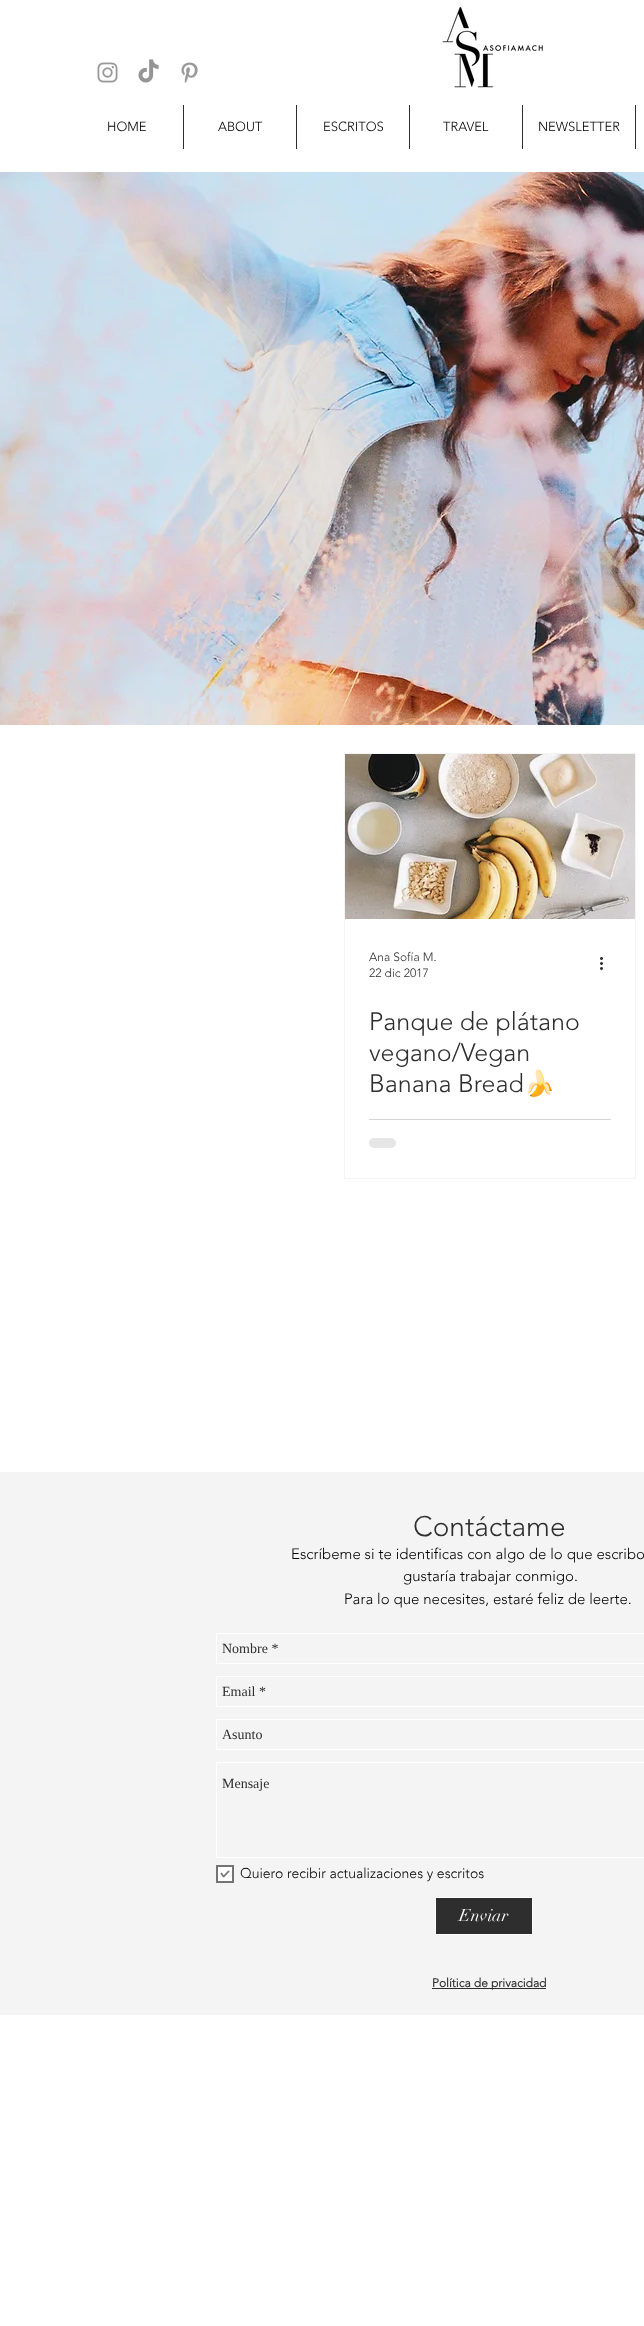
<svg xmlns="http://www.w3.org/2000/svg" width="644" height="2326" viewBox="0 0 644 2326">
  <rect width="100%" height="100%" fill="rgb(255,255,255)"/>
  <image x="97" y="62" width="21" height="21" href="pic1.png"/>
  <image x="138" y="59" width="21" height="24" href="pic2.png"/>
  <image x="181" y="62" width="17" height="21" href="pic3.png"/>
  <image x="442" y="7" width="101" height="81" href="pic4.png"/>
  <text x="107" y="131" font-family="'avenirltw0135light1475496'" font-size="13" font-weight="300" fill="rgb(0,0,0)">HOME</text>
  <rect x="183" y="105" width="1" height="44" fill="rgb(47,46,46)"/>
  <text x="218" y="131" font-family="'avenirltw0135light1475496'" font-size="13" font-weight="300" fill="rgb(0,0,0)">ABOUT</text>
  <rect x="296" y="105" width="1" height="44" fill="rgb(47,46,46)"/>
  <text x="323" y="131" font-family="'avenirltw0135light1475496'" font-size="13" font-weight="300" fill="rgb(0,0,0)">ESCRITOS</text>
  <rect x="409" y="105" width="1" height="44" fill="rgb(47,46,46)"/>
  <text x="443" y="131" font-family="'avenirltw0135light1475496'" font-size="13" font-weight="300" fill="rgb(0,0,0)">TRAVEL</text>
  <rect x="522" y="105" width="1" height="44" fill="rgb(47,46,46)"/>
  <text x="538" y="131" font-family="'avenirltw0135light1475496'" font-size="13" font-weight="300" fill="rgb(0,0,0)">NEWSLETTER</text>
  <rect x="635" y="105" width="1" height="44" fill="rgb(47,46,46)"/>
  <image x="0" y="172" width="644" height="553" href="pic5.png"/>
  <rect x="344.5" y="753.5" width="291" height="425" fill="none" stroke="rgb(245,244,244)"/>
  <image x="345" y="754" width="290" height="165" href="pic6.png"/>
  <g font-family="'avenirltw0135light1475496'" font-size="12" font-weight="300" fill="rgb(47,46,46)">
    <text>
      <tspan x="369" y="961">Ana Sofía M.</tspan>
      <tspan x="369" y="977">22 dic 2017</tspan>
    </text>
  </g>
  <image x="600" y="957" width="3" height="13" href="pic7.png"/>
  <g font-family="'avenirltw0135light1475496'" font-size="25" font-weight="300" fill="rgb(47,46,46)">
    <text>
      <tspan x="369" y="1030">Panque de plátano</tspan>
      <tspan x="369" y="1061">vegano/Vegan</tspan>
      <tspan x="369" y="1092">Banana Bread</tspan>
    </text>
  </g>
  <text x="524" y="1092" font-family="Noto Color Emoji" font-size="25" fill="rgb(47,46,46)">🍌</text>
  <rect x="369" y="1119" width="242" height="1" fill="rgb(213,213,213)"/>
  <rect x="369" y="1138" width="27" height="10" rx="5" fill="rgb(230,230,230)"/>
  <rect x="0" y="1472" width="644" height="543" fill="rgb(245,244,244)"/>
  <text x="413" y="1536" font-family="'avenirltw0135light1475496'" font-size="28" font-weight="300" fill="rgb(47,46,46)">Contáctame</text>
  <g font-family="'avenirltw0135light1475496'" font-size="15" font-weight="300" fill="rgb(0,0,0)">
    <text x="291" y="1559">Escríbeme si te identificas con algo de lo que escribo</text>
    <text x="403" y="1581">gustaría trabajar conmigo.</text>
    <text x="344" y="1604">Para lo que necesites, estaré feliz de leerte.</text>
  </g>
  <rect x="216.5" y="1633.5" width="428" height="30" fill="none" stroke="rgb(255,255,255)"/>
  <text x="222" y="1653" font-family="Liberation Serif" font-size="14" fill="rgb(47,46,46)">Nombre *</text>
  <rect x="216.5" y="1676.5" width="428" height="30" fill="none" stroke="rgb(255,255,255)"/>
  <text x="222" y="1696" font-family="Liberation Serif" font-size="14" fill="rgb(47,46,46)">Email *</text>
  <rect x="216.5" y="1719.5" width="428" height="30" fill="none" stroke="rgb(255,255,255)"/>
  <text x="222" y="1739" font-family="Liberation Serif" font-size="14" fill="rgb(47,46,46)">Asunto</text>
  <rect x="216.5" y="1762.5" width="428" height="95" fill="none" stroke="rgb(255,255,255)"/>
  <text x="222" y="1788" font-family="Liberation Serif" font-size="14" fill="rgb(47,46,46)">Mensaje</text>
  <rect x="217" y="1866" width="16" height="16" fill="rgb(255,255,255)" stroke="rgb(115,115,115)" stroke-width="2"/>
  <text x="240" y="1878" font-family="'avenirltw0135light1475496'" font-size="14" font-weight="300" fill="rgb(0,0,0)">Quiero recibir actualizaciones y escritos</text>
  <image x="220" y="1870" width="10" height="8" href="pic8.png"/>
  <rect x="435.5" y="1897.5" width="97" height="37" fill="rgb(47,46,46)" stroke="rgb(255,255,255)"/>
  <text x="459" y="1921" font-family="didot" font-size="17" fill="rgb(255,255,255)">Enviar</text>
  <rect x="432" y="1988" width="114" height="1" fill="rgb(47,46,46)"/>
  <text x="432" y="1987" font-family="'avenirltw0135light1475496'" font-size="12" font-weight="bold" fill="rgb(47,46,46)">Política de privacidad</text>
</svg>
